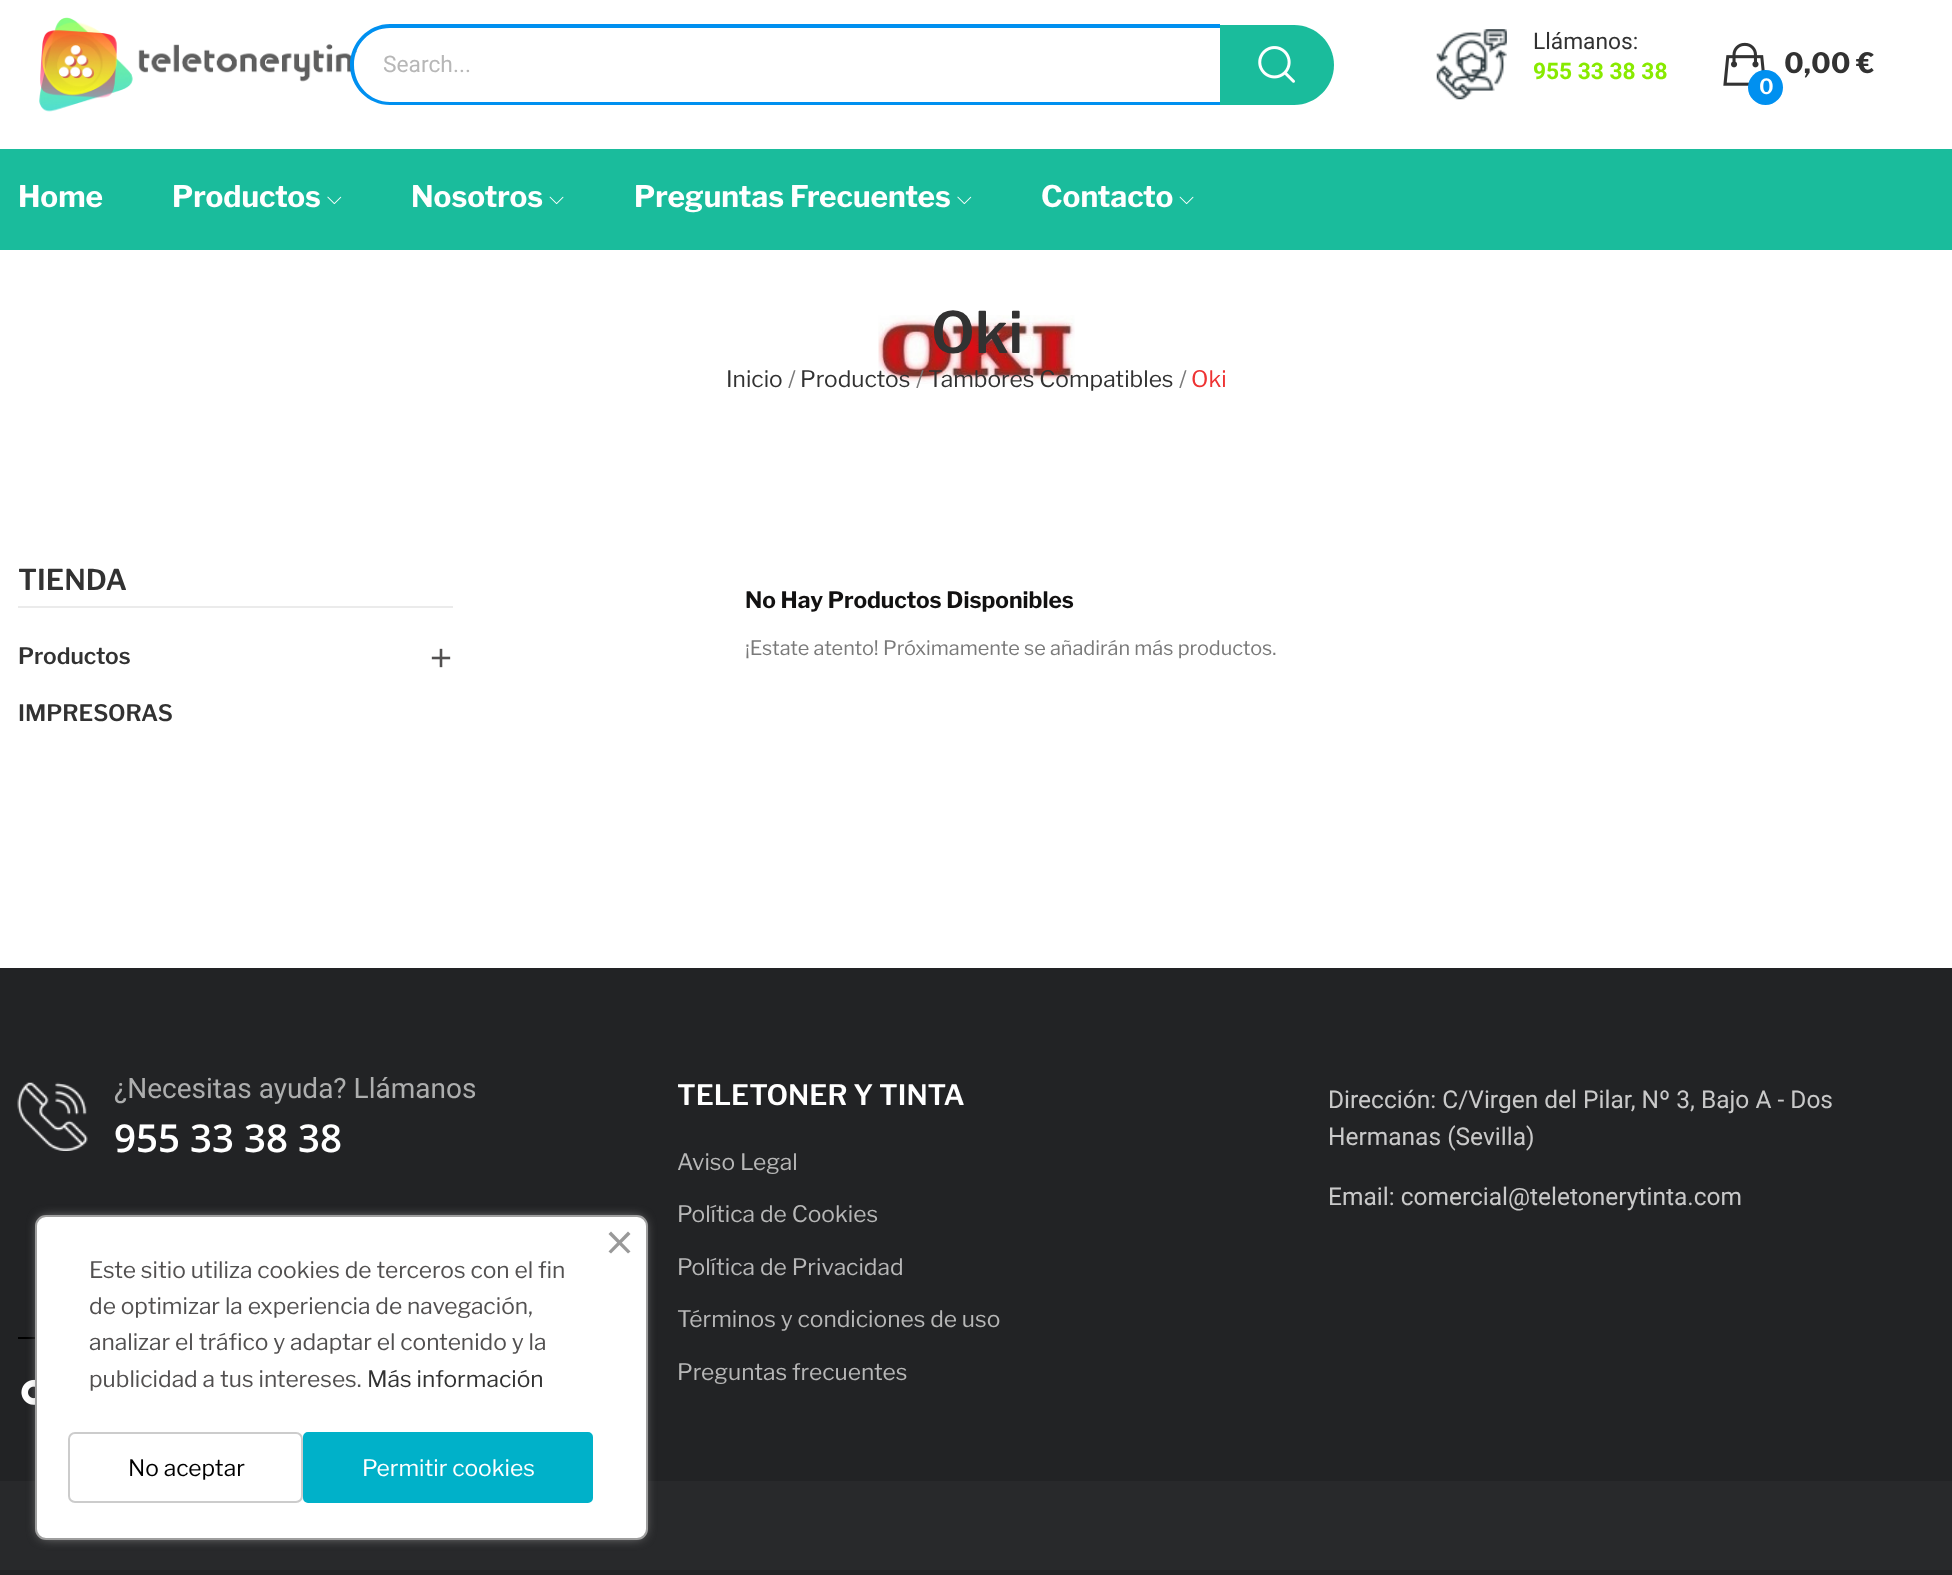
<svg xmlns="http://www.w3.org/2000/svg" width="1952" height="1575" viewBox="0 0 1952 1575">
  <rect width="100%" height="100%" fill="rgb(255,255,255)"/>
  <image x="39" y="17" width="319" height="95" href="pic1.png"/>
  <path d="M391 28H1220V102H391C370.5 102 354 85.5 354 65C354 44.5 370.5 28 391 28Z" fill="rgb(255,255,255)"/>
  <path d="M390 24H1220V105H390C368 105 350 87 350 65C350 43 368 24 390 24ZM390 28H1220V102H390C370 102 354 85 354 65C354 44 370 28 390 28Z" fill="rgb(0,144,240)" fill-rule="evenodd"/>
  <text x="383" y="72" font-family="Roboto" font-size="22.75" fill="rgb(183,183,183)">Search...</text>
  <path d="M1220 25H1294C1316 25 1334 43 1334 65C1334 87 1316 105 1294 105H1220Z" fill="rgb(26,188,156)"/>
  <image x="1258" y="46" width="37" height="37" href="pic2.png"/>
  <image x="1436" y="29" width="71" height="71" href="pic3.png"/>
  <text x="1533" y="49" font-family="Roboto" font-size="22.75" fill="rgb(50,50,50)">Llámanos:</text>
  <text x="1533" y="79" font-family="Roboto" font-size="22.75" font-weight="bold" fill="rgb(136,234,0)">955 33 38 38</text>
  <image x="1723" y="42" width="42" height="44" href="pic4.png"/>
  <text x="1784" y="73" font-family="Libre Franklin" font-size="28" font-weight="bold" fill="rgb(50,50,50)">0,00 €</text>
  <circle cx="1765.5" cy="87.5" r="17.5" fill="rgb(0,144,240)"/>
  <text x="1759" y="94" font-family="Libre Franklin" font-size="21" font-weight="600" fill="rgb(255,255,255)">0</text>
  <rect x="0" y="149" width="1952" height="101" fill="rgb(26,188,156)"/>
  <g font-family="Libre Franklin" font-size="29.75" font-weight="bold" fill="rgb(255,255,255)">
    <text x="18" y="207">Home</text>
    <text x="172" y="207">Productos</text>
  </g>
  <image x="327" y="196" width="15" height="9" href="pic5.png"/>
  <text x="411" y="207" font-family="Libre Franklin" font-size="29.75" font-weight="bold" fill="rgb(255,255,255)">Nosotros</text>
  <image x="549" y="196" width="15" height="9" href="pic6.png"/>
  <text x="634" y="207" font-family="Libre Franklin" font-size="29.75" font-weight="bold" fill="rgb(255,255,255)">Preguntas Frecuentes</text>
  <image x="957" y="196" width="15" height="9" href="pic5.png"/>
  <text x="1041" y="207" font-family="Libre Franklin" font-size="29.75" font-weight="bold" fill="rgb(255,255,255)">Contacto</text>
  <image x="1179" y="196" width="15" height="9" href="pic6.png"/>
  <image x="878" y="315" width="197" height="69" href="pic7.png"/>
  <text x="931" y="353" font-family="Libre Franklin" font-size="57" font-weight="600" fill="rgb(50,50,50)">Oki</text>
  <text x="726" y="387" font-family="Libre Franklin" font-size="22.75" fill="rgb(50,50,50)">Inicio</text>
  <text x="788" y="387" font-family="Libre Franklin" font-size="22.75" fill="rgb(122,122,122)">/</text>
  <text x="800" y="387" font-family="Libre Franklin" font-size="22.75" fill="rgb(50,50,50)">Productos</text>
  <text x="916" y="387" font-family="Libre Franklin" font-size="22.75" fill="rgb(122,122,122)">/</text>
  <text x="928" y="387" font-family="Libre Franklin" font-size="22.75" fill="rgb(50,50,50)">Tambores Compatibles</text>
  <text x="1179" y="387" font-family="Libre Franklin" font-size="22.75" fill="rgb(122,122,122)">/</text>
  <text x="1191" y="387" font-family="Libre Franklin" font-size="22.75" fill="rgb(238,51,51)">Oki</text>
  <rect x="18" y="606" width="435" height="2" fill="rgb(235,235,235)"/>
  <text x="18" y="590" font-family="Libre Franklin" font-size="28.5" font-weight="600" fill="rgb(50,50,50)">TIENDA</text>
  <text x="18" y="664" font-family="Libre Franklin" font-size="22.75" font-weight="600" fill="rgb(50,50,50)">Productos</text>
  <image x="431" y="648" width="20" height="20" href="pic8.png"/>
  <text x="18" y="721" font-family="Libre Franklin" font-size="22.75" font-weight="600" fill="rgb(50,50,50)">IMPRESORAS</text>
  <text x="745" y="608" font-family="Libre Franklin" font-size="22.75" font-weight="bold" fill="rgb(18,17,17)">No Hay Productos Disponibles</text>
  <text x="745" y="655" font-family="Libre Franklin" font-size="19.9" fill="rgb(122,122,122)">¡Estate atento! Próximamente se añadirán más productos.</text>
  <rect x="0" y="968" width="1952" height="513" fill="rgb(34,35,37)"/>
  <image x="17" y="1082" width="71" height="69" href="pic9.png"/>
  <text x="114" y="1098" font-family="Roboto" font-size="28" fill="rgb(173,174,174)">¿Necesitas ayuda? Llámanos</text>
  <text x="114" y="1152" font-family="Open Sans" font-size="38.5" font-weight="600" fill="rgb(255,255,255)">955 33 38 38</text>
  <rect x="18" y="1337" width="17" height="2" fill="rgb(0,0,0)"/>
  <image x="21" y="1379" width="14" height="26" href="pic10.png"/>
  <text x="677" y="1105" font-family="Libre Franklin" font-size="28" font-weight="600" fill="rgb(255,255,255)">TELETONER Y TINTA</text>
  <g font-family="Libre Franklin" font-size="22.75" fill="rgb(183,183,183)">
    <text x="677" y="1170">Aviso Legal</text>
    <text x="677" y="1222">Política de Cookies</text>
    <text x="677" y="1275">Política de Privacidad</text>
    <text x="677" y="1327">Términos y condiciones de uso</text>
    <text x="677" y="1380">Preguntas frecuentes</text>
  </g>
  <g font-family="Roboto" font-size="24.5" fill="rgb(201,201,201)">
    <text>
      <tspan x="1328" y="1108">Dirección: C/Virgen del Pilar, Nº 3, Bajo A - Dos</tspan>
      <tspan x="1328" y="1145">Hermanas (Sevilla)</tspan>
    </text>
    <text x="1328" y="1205">Email: comercial@teletonerytinta.com</text>
  </g>
  <rect x="0" y="1481" width="1952" height="89" fill="rgb(40,41,43)"/>
  <rect x="0" y="1570" width="1952" height="5" fill="rgb(34,35,37)"/>
  <rect x="39" y="1218" width="605" height="319" rx="7" fill="rgb(158,158,158)" filter="blur(6px)"/>
  <rect x="36" y="1216" width="611" height="323" rx="10" fill="rgb(255,255,255)" stroke="rgb(158,158,158)" stroke-width="2"/>
  <path d="M608.5 1251.5L628 1231.5L630.5 1234L611 1253.5Z" fill="rgb(153,153,153)"/>
  <path d="M611 1231.5L630.5 1251.5L628 1253.5L608.5 1234Z" fill="rgb(153,153,153)"/>
  <g font-family="Libre Franklin" font-size="22.75" fill="rgb(82,80,80)">
    <text>
      <tspan x="89" y="1278">Este sitio utiliza cookies de terceros con el fin</tspan>
      <tspan x="89" y="1314">de optimizar la experiencia de navegación,</tspan>
      <tspan x="89" y="1350">analizar el tráfico y adaptar el contenido y la</tspan>
      <tspan x="89" y="1387">publicidad a tus intereses.</tspan>
    </text>
  </g>
  <text x="367" y="1387" font-family="Libre Franklin" font-size="22.75" fill="rgb(50,50,50)">Más información</text>
  <rect x="69" y="1433" width="233" height="69" rx="6" fill="none" stroke="rgb(204,204,204)" stroke-width="2"/>
  <text x="128" y="1476" font-family="Libre Franklin" font-size="22.75" fill="rgb(0,0,0)">No aceptar</text>
  <rect x="304" y="1433" width="288" height="69" rx="4" fill="rgb(0,177,201)" stroke="rgb(0,177,201)" stroke-width="2"/>
  <text x="362" y="1476" font-family="Libre Franklin" font-size="22.75" fill="rgb(255,255,255)">Permitir cookies</text>
</svg>
